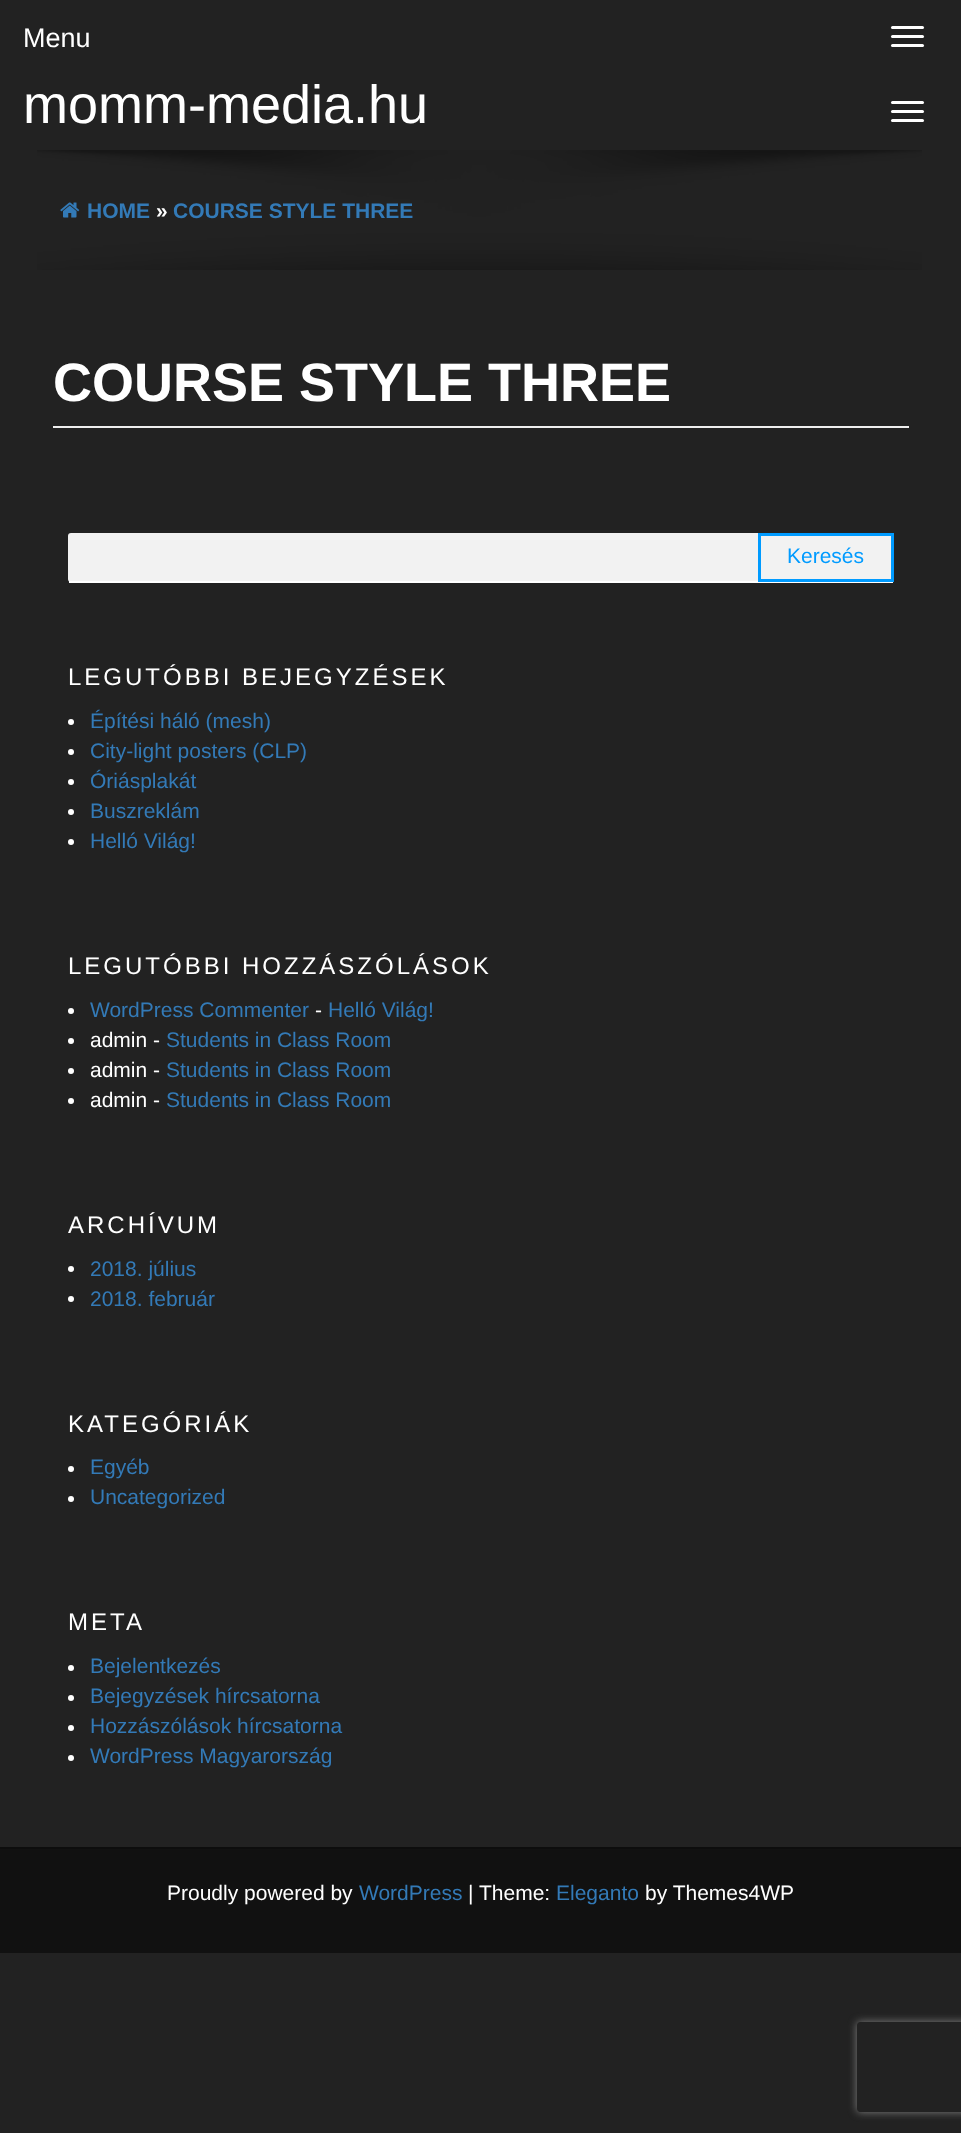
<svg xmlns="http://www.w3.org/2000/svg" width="961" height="2133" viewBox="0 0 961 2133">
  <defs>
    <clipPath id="clip1"><path d="M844 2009H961V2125H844ZM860 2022H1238C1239.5 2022 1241 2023.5 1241 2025V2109C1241 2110.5 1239.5 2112 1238 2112H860C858.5 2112 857 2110.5 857 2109V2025C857 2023.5 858.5 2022 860 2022Z" clip-rule="evenodd"/></clipPath>
  </defs>
  <rect width="100%" height="100%" fill="rgb(34,34,34)"/>
  <text x="23" y="47" font-family="Liberation Sans" font-size="27" fill="rgb(255,255,255)">Menu</text>
  <rect x="891" y="26" width="33" height="3" rx="1.5" fill="rgb(255,255,255)"/>
  <rect x="891" y="35" width="33" height="3" rx="1.5" fill="rgb(255,255,255)"/>
  <rect x="891" y="44" width="33" height="3" rx="1.5" fill="rgb(255,255,255)"/>
  <text x="23" y="123" font-family="Liberation Sans" font-size="54" fill="rgb(255,255,255)">momm-media.hu</text>
  <rect x="891" y="101" width="33" height="3" rx="1.5" fill="rgb(255,255,255)"/>
  <rect x="891" y="110" width="33" height="3" rx="1.5" fill="rgb(255,255,255)"/>
  <rect x="891" y="119" width="33" height="3" rx="1.5" fill="rgb(255,255,255)"/>
  <image x="37" y="150" width="885" height="120" href="pic1.png"/>
  <image x="60" y="202" width="20" height="16" href="pic2.png"/>
  <text x="87" y="218" font-family="Liberation Sans" font-size="21" font-weight="bold" fill="rgb(51,122,183)">HOME</text>
  <text x="156" y="218" font-family="Liberation Sans" font-size="21" font-weight="bold" fill="rgb(255,255,255)">»</text>
  <text x="173" y="218" font-family="Liberation Sans" font-size="21" font-weight="bold" fill="rgb(51,122,183)">COURSE STYLE THREE</text>
  <rect x="53" y="426" width="856" height="2" fill="rgb(238,238,238)"/>
  <text x="53" y="401" font-family="Liberation Sans" font-size="54" font-weight="bold" fill="rgb(255,255,255)">COURSE STYLE THREE</text>
  <rect x="68" y="533" width="826" height="49" rx="3" fill="rgb(242,242,242)"/>
  <rect x="69" y="581" width="824" height="2" fill="rgb(255,255,255)"/>
  <rect x="759.5" y="534.5" width="133" height="46" fill="none" stroke="rgb(0,155,255)" stroke-width="3"/>
  <text x="787" y="563" font-family="Liberation Sans" font-size="21" fill="rgb(0,155,255)">Keresés</text>
  <text x="68" y="685" font-family="Liberation Sans" font-size="24" letter-spacing="3" fill="rgb(255,255,255)">LEGUTÓBBI BEJEGYZÉSEK</text>
  <circle cx="71" cy="722" r="3" fill="rgb(255,255,255)"/>
  <text x="90" y="728" font-family="Liberation Sans" font-size="21" fill="rgb(51,122,183)">Építési háló (mesh)</text>
  <circle cx="71" cy="752" r="3" fill="rgb(255,255,255)"/>
  <text x="90" y="758" font-family="Liberation Sans" font-size="21" fill="rgb(51,122,183)">City-light posters (CLP)</text>
  <circle cx="71" cy="782" r="3" fill="rgb(255,255,255)"/>
  <text x="90" y="788" font-family="Liberation Sans" font-size="21" fill="rgb(51,122,183)">Óriásplakát</text>
  <circle cx="71" cy="812" r="3" fill="rgb(255,255,255)"/>
  <text x="90" y="818" font-family="Liberation Sans" font-size="21" fill="rgb(51,122,183)">Buszreklám</text>
  <circle cx="71" cy="842" r="3" fill="rgb(255,255,255)"/>
  <text x="90" y="848" font-family="Liberation Sans" font-size="21" fill="rgb(51,122,183)">Helló Világ!</text>
  <text x="68" y="974" font-family="Liberation Sans" font-size="24" letter-spacing="3" fill="rgb(255,255,255)">LEGUTÓBBI HOZZÁSZÓLÁSOK</text>
  <circle cx="71" cy="1011" r="3" fill="rgb(255,255,255)"/>
  <text x="90" y="1017" font-family="Liberation Sans" font-size="21" fill="rgb(51,122,183)">WordPress Commenter</text>
  <text x="315" y="1017" font-family="Liberation Sans" font-size="21" fill="rgb(255,255,255)">-</text>
  <text x="328" y="1017" font-family="Liberation Sans" font-size="21" fill="rgb(51,122,183)">Helló Világ!</text>
  <circle cx="71" cy="1041" r="3" fill="rgb(255,255,255)"/>
  <text x="90" y="1047" font-family="Liberation Sans" font-size="21" fill="rgb(255,255,255)">admin -</text>
  <text x="166" y="1047" font-family="Liberation Sans" font-size="21" fill="rgb(51,122,183)">Students in Class Room</text>
  <circle cx="71" cy="1071" r="3" fill="rgb(255,255,255)"/>
  <text x="90" y="1077" font-family="Liberation Sans" font-size="21" fill="rgb(255,255,255)">admin -</text>
  <text x="166" y="1077" font-family="Liberation Sans" font-size="21" fill="rgb(51,122,183)">Students in Class Room</text>
  <circle cx="71" cy="1101" r="3" fill="rgb(255,255,255)"/>
  <text x="90" y="1107" font-family="Liberation Sans" font-size="21" fill="rgb(255,255,255)">admin -</text>
  <text x="166" y="1107" font-family="Liberation Sans" font-size="21" fill="rgb(51,122,183)">Students in Class Room</text>
  <text x="68" y="1233" font-family="Liberation Sans" font-size="24" letter-spacing="3" fill="rgb(255,255,255)">ARCHÍVUM</text>
  <circle cx="71" cy="1269" r="3" fill="rgb(255,255,255)"/>
  <text x="90" y="1276" font-family="Liberation Sans" font-size="21" fill="rgb(51,122,183)">2018. július</text>
  <circle cx="71" cy="1299" r="3" fill="rgb(255,255,255)"/>
  <text x="90" y="1306" font-family="Liberation Sans" font-size="21" fill="rgb(51,122,183)">2018. február</text>
  <text x="68" y="1432" font-family="Liberation Sans" font-size="24" letter-spacing="3" fill="rgb(255,255,255)">KATEGÓRIÁK</text>
  <circle cx="71" cy="1469" r="3" fill="rgb(255,255,255)"/>
  <text x="90" y="1474" font-family="Liberation Sans" font-size="21" fill="rgb(51,122,183)">Egyéb</text>
  <circle cx="71" cy="1499" r="3" fill="rgb(255,255,255)"/>
  <text x="90" y="1504" font-family="Liberation Sans" font-size="21" fill="rgb(51,122,183)">Uncategorized</text>
  <text x="68" y="1630" font-family="Liberation Sans" font-size="24" letter-spacing="3" fill="rgb(255,255,255)">META</text>
  <circle cx="71" cy="1668" r="3" fill="rgb(255,255,255)"/>
  <text x="90" y="1673" font-family="Liberation Sans" font-size="21" fill="rgb(51,122,183)">Bejelentkezés</text>
  <circle cx="71" cy="1698" r="3" fill="rgb(255,255,255)"/>
  <text x="90" y="1703" font-family="Liberation Sans" font-size="21" fill="rgb(51,122,183)">Bejegyzések hírcsatorna</text>
  <circle cx="71" cy="1728" r="3" fill="rgb(255,255,255)"/>
  <text x="90" y="1733" font-family="Liberation Sans" font-size="21" fill="rgb(51,122,183)">Hozzászólások hírcsatorna</text>
  <circle cx="71" cy="1758" r="3" fill="rgb(255,255,255)"/>
  <text x="90" y="1763" font-family="Liberation Sans" font-size="21" fill="rgb(51,122,183)">WordPress Magyarország</text>
  <rect x="0" y="1849" width="961" height="104" fill="rgb(17,17,17)"/>
  <rect x="0" y="1847" width="961" height="2" fill="rgb(13,13,13)"/>
  <text x="167" y="1900" font-family="Liberation Sans" font-size="21" fill="rgb(255,255,255)">Proudly powered by</text>
  <text x="359" y="1900" font-family="Liberation Sans" font-size="21" fill="rgb(51,122,183)">WordPress</text>
  <g font-family="Liberation Sans" font-size="21" fill="rgb(255,255,255)">
    <text x="468" y="1900">|</text>
    <text x="479" y="1900">Theme:</text>
  </g>
  <text x="556" y="1900" font-family="Liberation Sans" font-size="21" fill="rgb(51,122,183)">Eleganto</text>
  <text x="645" y="1900" font-family="Liberation Sans" font-size="21" fill="rgb(255,255,255)">by Themes4WP</text>
  <g clip-path="url(#clip1)">
    <rect x="857" y="2022" width="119" height="90" rx="3" fill="rgb(128,128,128)" filter="blur(4px)"/>
  </g>
</svg>
